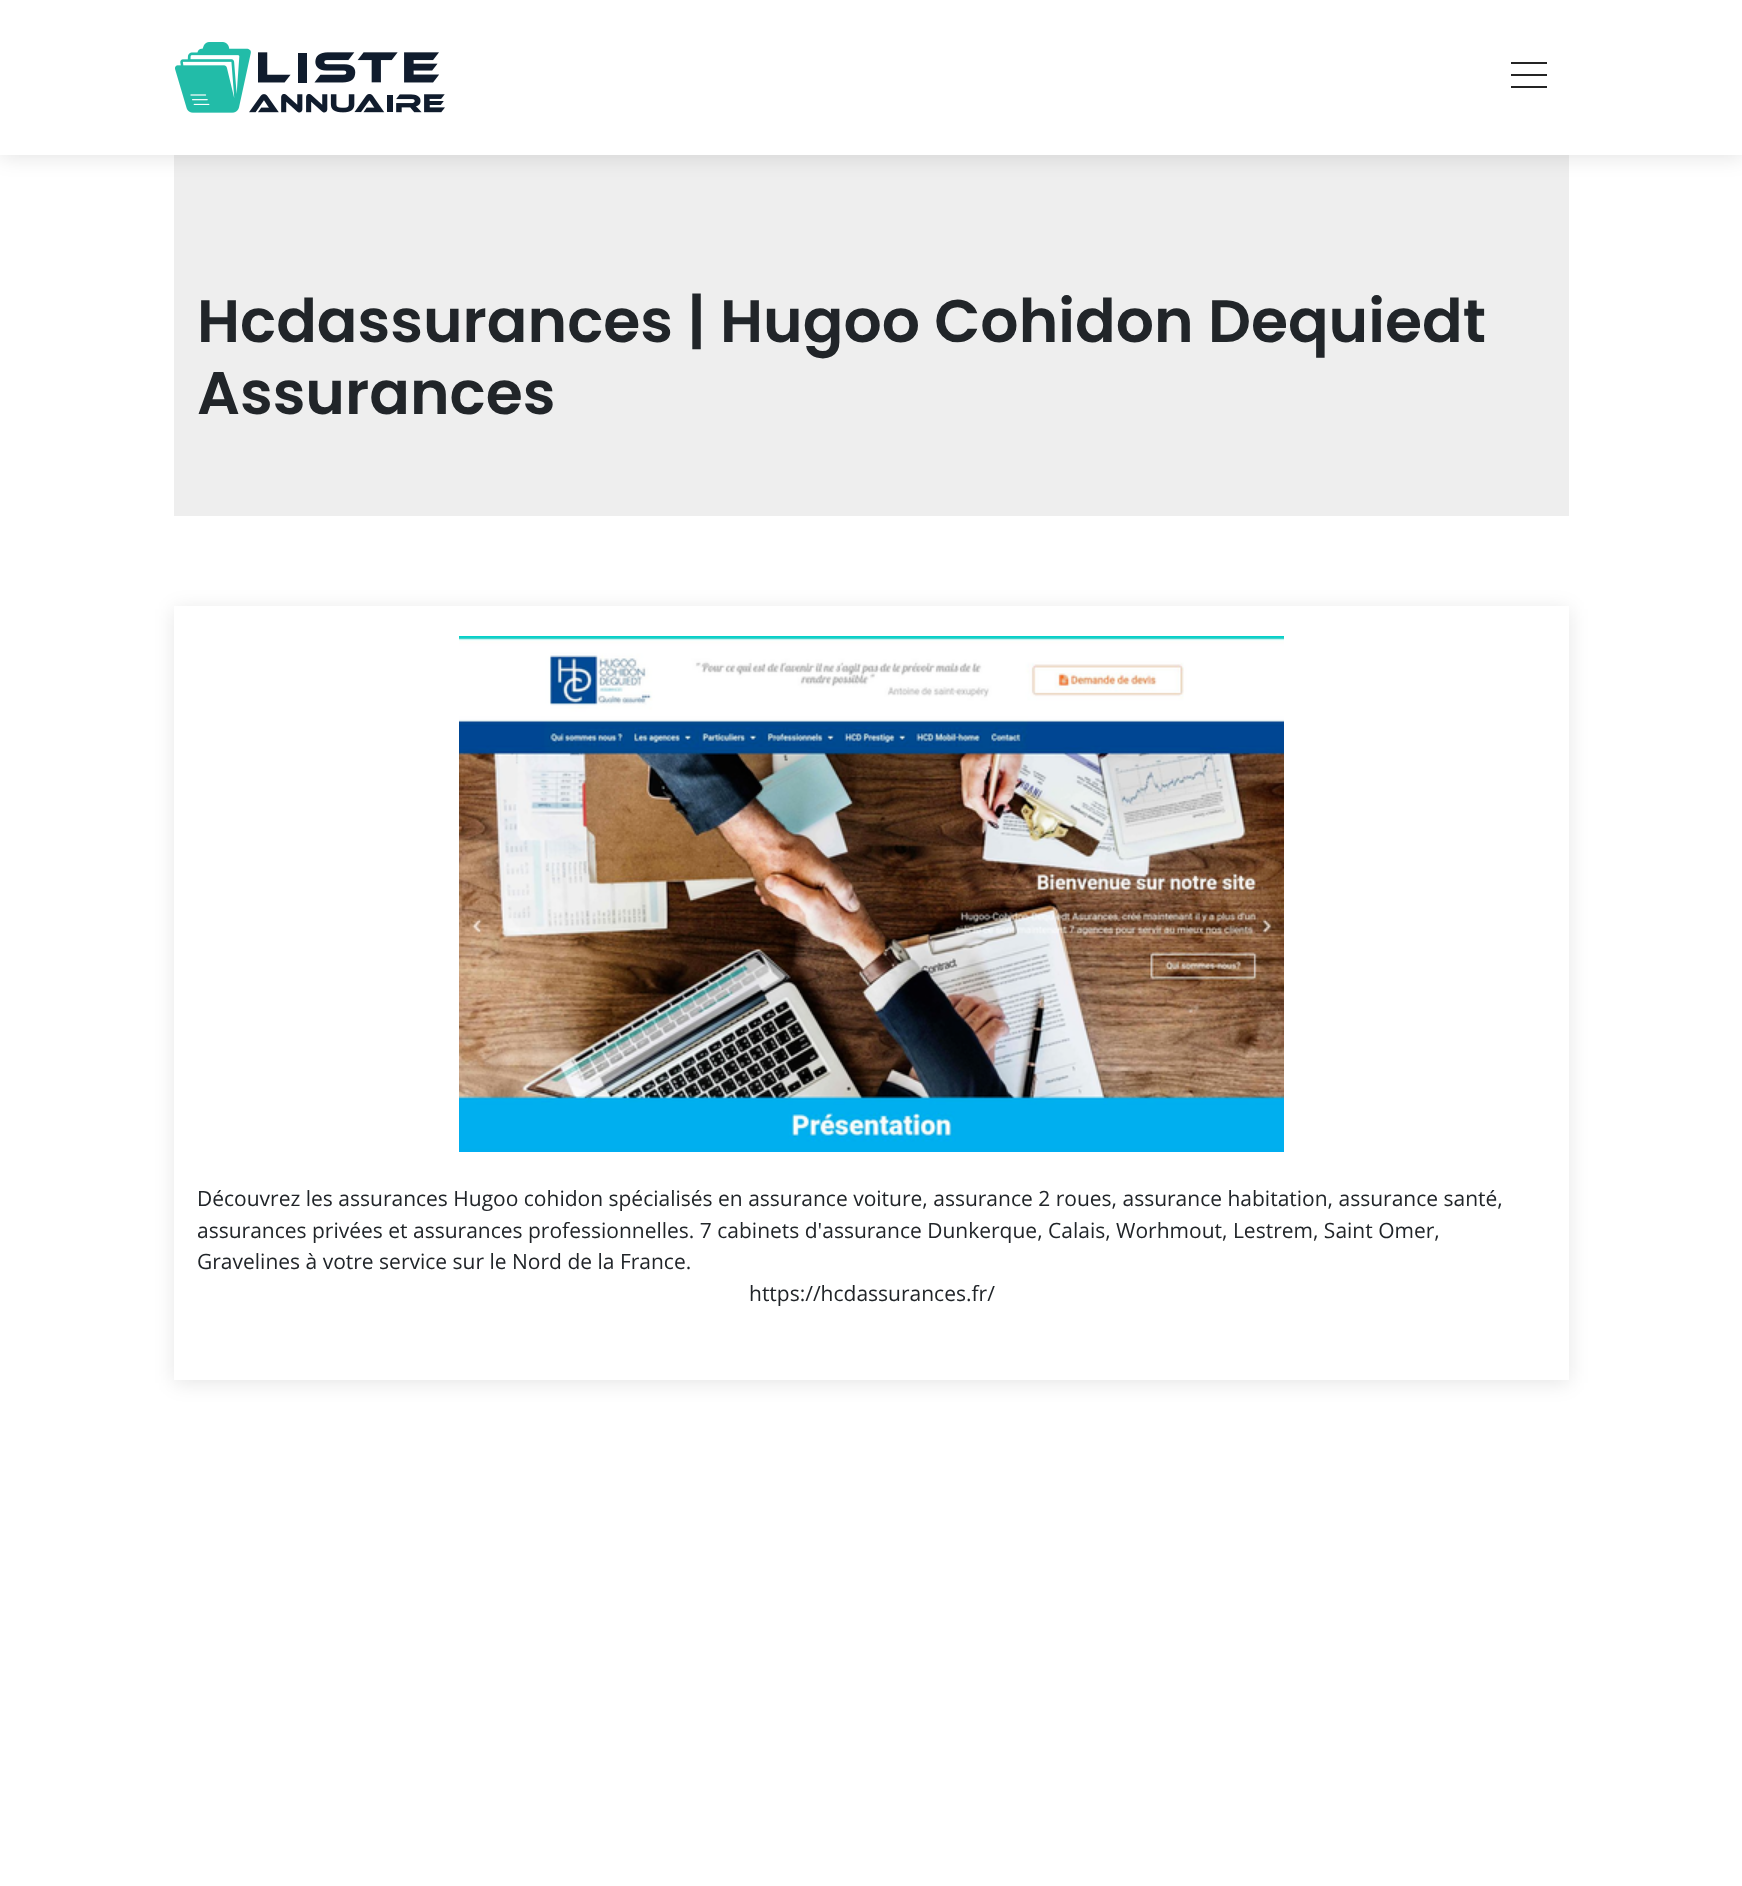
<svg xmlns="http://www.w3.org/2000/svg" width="1742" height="1886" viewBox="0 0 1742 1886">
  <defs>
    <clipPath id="clip1"><path d="M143 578H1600V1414H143ZM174 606H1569V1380H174Z" clip-rule="evenodd"/></clipPath>
  </defs>
  <rect width="100%" height="100%" fill="rgb(255,255,255)"/>
  <rect x="174" y="155" width="1395" height="361" fill="rgb(238,238,238)"/>
  <rect x="0" y="3" width="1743" height="155" fill="rgba(0,0,0,0.1)" filter="blur(10px)"/>
  <rect x="0" y="0" width="1742" height="155" fill="rgb(255,255,255)"/>
  <image x="175" y="42" width="270" height="71" href="pic1.png"/>
  <rect x="1511" y="62" width="36" height="2" fill="rgb(36,36,36)"/>
  <rect x="1511" y="74" width="36" height="2" fill="rgb(36,36,36)"/>
  <rect x="1511" y="86" width="36" height="2" fill="rgb(36,36,36)"/>
  <g font-family="Poppins" font-size="60" font-weight="600" fill="rgb(33,37,41)">
    <text>
      <tspan x="197" y="342">Hcdassurances | Hugoo Cohidon Dequiedt</tspan>
      <tspan x="197" y="414">Assurances</tspan>
    </text>
  </g>
  <g clip-path="url(#clip1)">
    <rect x="174" y="609" width="1395" height="774" fill="rgba(0,0,0,0.1)" filter="blur(10px)"/>
  </g>
  <image x="459" y="636" width="825" height="516" href="pic2.png"/>
  <g font-family="Open Sans" font-size="21" fill="rgb(33,37,41)">
    <text>
      <tspan x="197" y="1206">Découvrez les assurances Hugoo cohidon spécialisés en assurance voiture, assurance 2 roues, assurance habitation, assurance santé,</tspan>
      <tspan x="197" y="1238">assurances privées et assurances professionnelles. 7 cabinets d'assurance Dunkerque, Calais, Worhmout, Lestrem, Saint Omer,</tspan>
      <tspan x="197" y="1269">Gravelines à votre service sur le Nord de la France.</tspan>
    </text>
    <text x="749" y="1301">https://hcdassurances.fr/</text>
  </g>
</svg>
